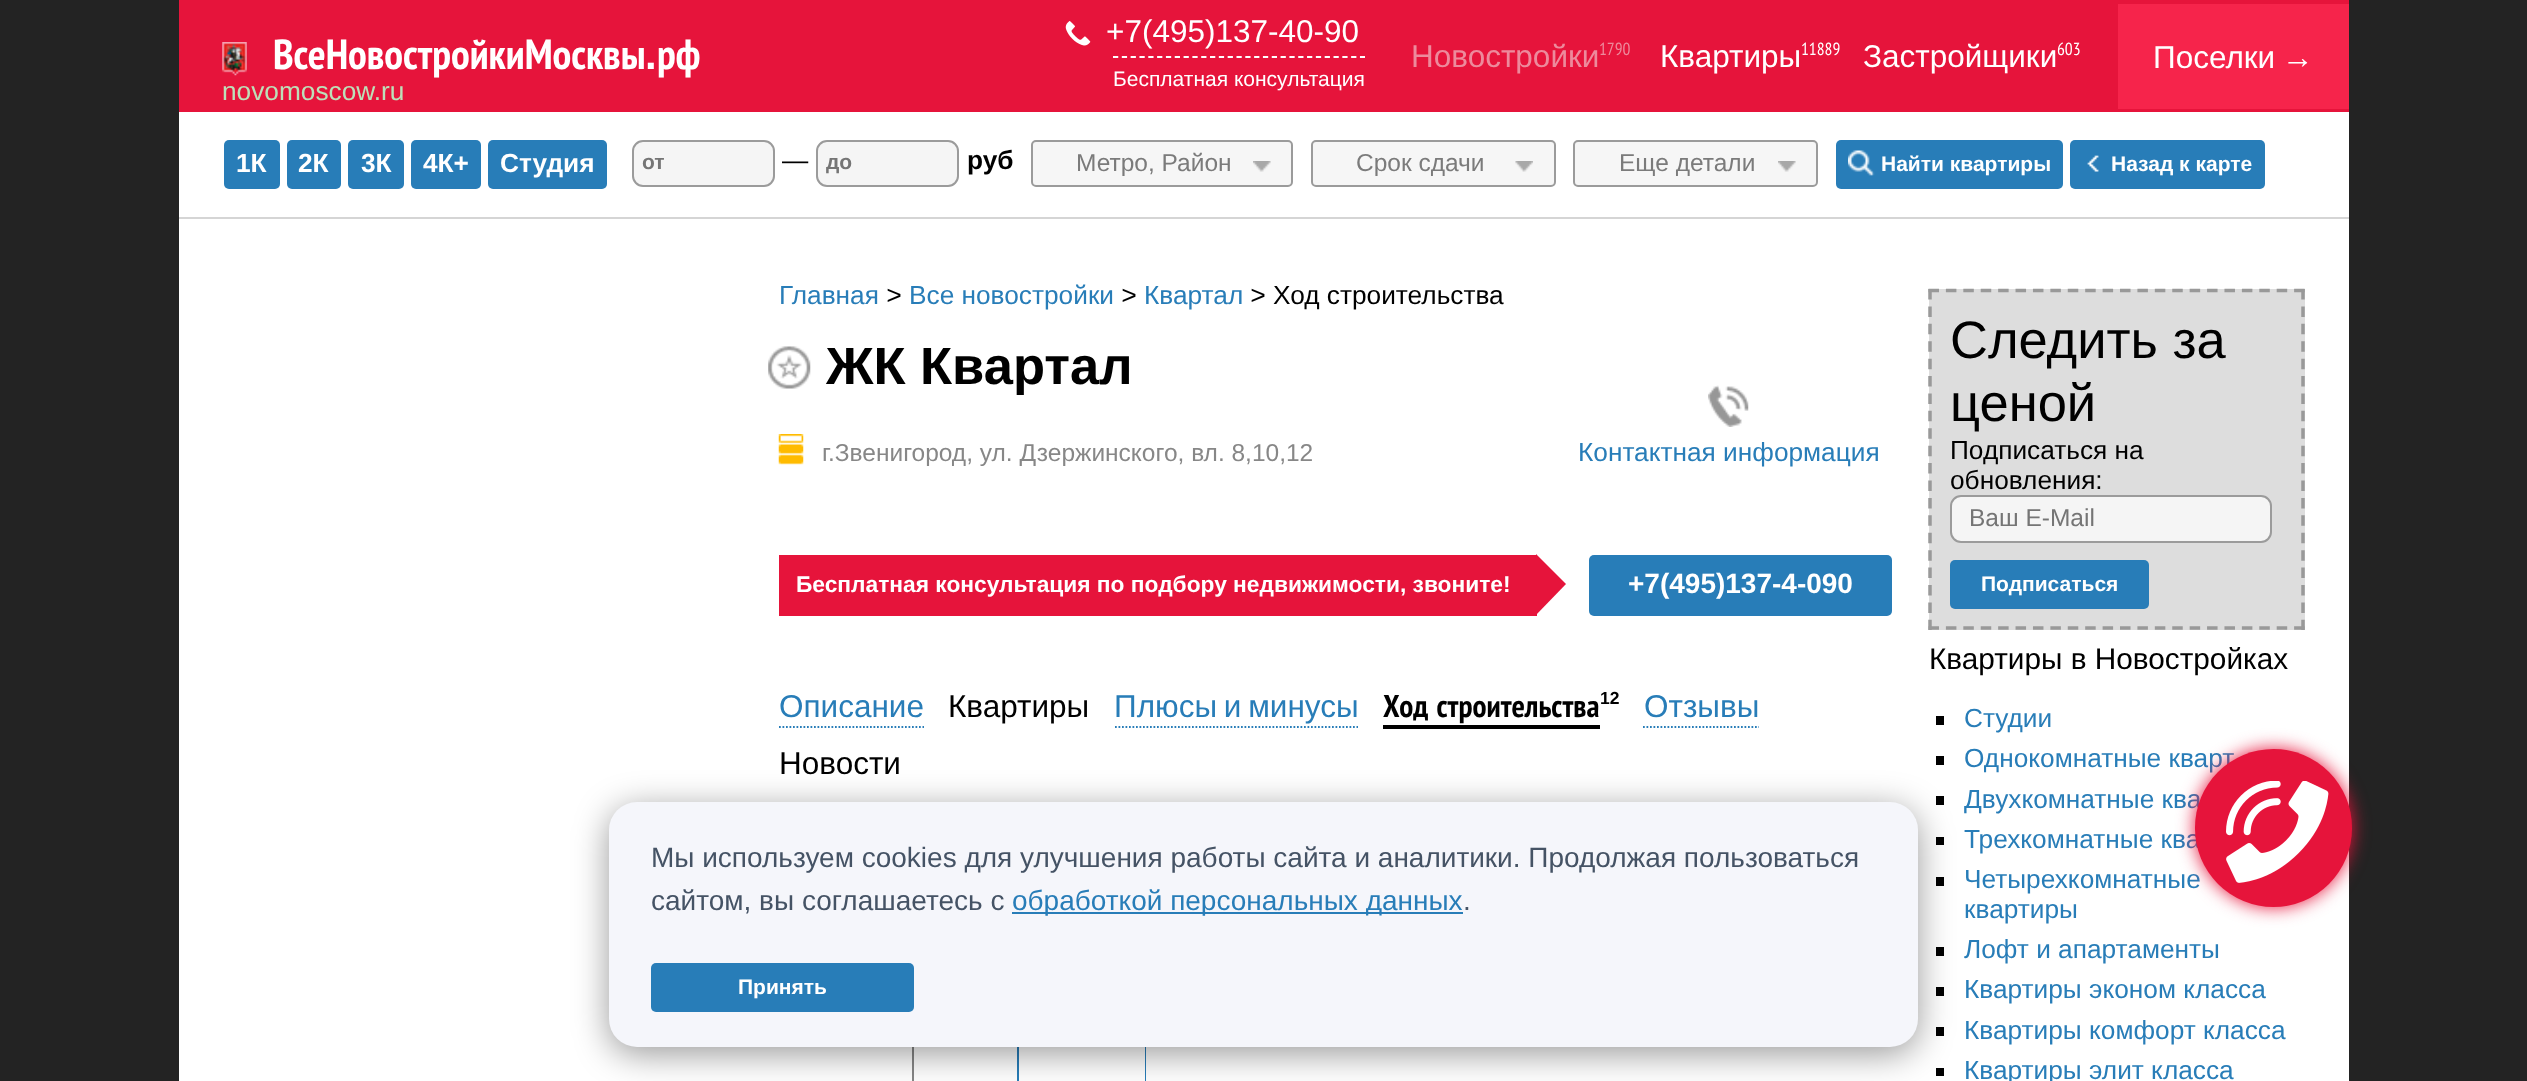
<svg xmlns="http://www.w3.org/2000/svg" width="2527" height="1081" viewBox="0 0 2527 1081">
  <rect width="100%" height="100%" fill="rgb(35,35,35)"/>
  <rect x="179" y="0" width="2170" height="112" fill="rgb(230,20,59)"/>
  <image x="222" y="42" width="25" height="34" href="pic1.png"/>
  <text x="273" y="69" font-family="PT Sans Narrow" font-size="42" font-weight="bold" fill="rgb(255,255,255)">ВсеНовостройкиМосквы</text>
  <text x="645" y="69" font-family="Liberation Sans" font-size="42" font-weight="bold" fill="rgb(255,255,255)">.</text>
  <text x="657" y="69" font-family="PT Sans Narrow" font-size="42" font-weight="bold" fill="rgb(255,255,255)">рф</text>
  <text x="222" y="100" font-family="Liberation Sans" font-size="26.25" fill="rgb(189,224,185)">novomoscow.ru</text>
  <image x="1065" y="21" width="26" height="25" href="pic2.png"/>
  <text x="1106" y="42" font-family="Liberation Sans" font-size="31.5" fill="rgb(255,255,255)">+7(495)137-40-90</text>
  <path d="M1113 57H1365" fill="none" stroke="rgb(255,255,255)" stroke-width="1.8" stroke-dasharray="5.25 3.57"/>
  <text x="1113" y="86" font-family="Liberation Sans" font-size="21" fill="rgb(255,255,255)">Бесплатная консультация</text>
  <text x="1411" y="67" font-family="Liberation Sans" font-size="31.5" fill="rgb(237,138,156)">Новостройки</text>
  <text x="1599" y="55" font-family="PT Sans Narrow" font-size="17.5" fill="rgb(237,138,156)">1790</text>
  <text x="1660" y="67" font-family="Liberation Sans" font-size="31.5" fill="rgb(255,255,255)">Квартиры</text>
  <text x="1801" y="55" font-family="PT Sans Narrow" font-size="17.5" fill="rgb(255,255,255)">11889</text>
  <text x="1863" y="67" font-family="Liberation Sans" font-size="31.5" fill="rgb(255,255,255)">Застройщики</text>
  <text x="2057" y="55" font-family="PT Sans Narrow" font-size="17.5" fill="rgb(255,255,255)">603</text>
  <rect x="2118" y="4" width="231" height="105" fill="rgb(246,36,75)"/>
  <g font-family="Liberation Sans" font-size="31.5" fill="rgb(255,255,255)">
    <text x="2153" y="68">Поселки</text>
    <text x="2282" y="68">→</text>
  </g>
  <rect x="179" y="112" width="2170" height="105" fill="rgb(255,255,255)"/>
  <rect x="179" y="217" width="2170" height="2" fill="rgb(213,213,213)"/>
  <rect x="224" y="140" width="56" height="49" rx="5" fill="rgb(40,125,184)"/>
  <text x="236" y="172" font-family="Liberation Sans" font-size="26.25" font-weight="bold" fill="rgb(255,255,255)">1К</text>
  <rect x="287" y="140" width="54" height="49" rx="5" fill="rgb(40,125,184)"/>
  <text x="298" y="172" font-family="Liberation Sans" font-size="26.25" font-weight="bold" fill="rgb(255,255,255)">2К</text>
  <rect x="348" y="140" width="56" height="49" rx="5" fill="rgb(40,125,184)"/>
  <text x="361" y="172" font-family="Liberation Sans" font-size="26.25" font-weight="bold" fill="rgb(255,255,255)">3К</text>
  <rect x="411" y="140" width="70" height="49" rx="5" fill="rgb(40,125,184)"/>
  <text x="423" y="172" font-family="Liberation Sans" font-size="26.25" font-weight="bold" fill="rgb(255,255,255)">4К+</text>
  <rect x="488" y="140" width="119" height="49" rx="5" fill="rgb(40,125,184)"/>
  <text x="500" y="172" font-family="Liberation Sans" font-size="26.25" font-weight="bold" fill="rgb(255,255,255)">Студия</text>
  <rect x="633" y="141" width="141" height="45" rx="10" fill="rgb(245,245,245)" stroke="rgb(155,155,155)" stroke-width="2"/>
  <text x="642" y="169" font-family="Liberation Sans" font-size="21" font-weight="bold" fill="rgb(117,117,117)">от</text>
  <text x="782" y="169" font-family="Liberation Sans" font-size="26.25" fill="rgb(0,0,0)">—</text>
  <rect x="817" y="141" width="141" height="45" rx="10" fill="rgb(245,245,245)" stroke="rgb(155,155,155)" stroke-width="2"/>
  <text x="826" y="169" font-family="Liberation Sans" font-size="21" font-weight="bold" fill="rgb(117,117,117)">до</text>
  <text x="967" y="169" font-family="Liberation Sans" font-size="26.25" font-weight="bold" fill="rgb(0,0,0)">руб</text>
  <rect x="1032" y="141" width="260" height="45" rx="4" fill="rgb(246,246,246)" stroke="rgb(155,155,155)" stroke-width="2"/>
  <text x="1076" y="171" font-family="Liberation Sans" font-size="24.5" fill="rgb(123,123,123)">Метро, Район</text>
  <image x="1253" y="161" width="18" height="11" href="pic3.png"/>
  <rect x="1312" y="141" width="243" height="45" rx="4" fill="rgb(246,246,246)" stroke="rgb(155,155,155)" stroke-width="2"/>
  <text x="1356" y="171" font-family="Liberation Sans" font-size="24.5" fill="rgb(123,123,123)">Срок сдачи</text>
  <image x="1515" y="161" width="18" height="11" href="pic4.png"/>
  <rect x="1574" y="141" width="243" height="45" rx="4" fill="rgb(246,246,246)" stroke="rgb(155,155,155)" stroke-width="2"/>
  <text x="1619" y="171" font-family="Liberation Sans" font-size="24.5" fill="rgb(123,123,123)">Еще детали</text>
  <image x="1778" y="161" width="18" height="11" href="pic3.png"/>
  <rect x="1836" y="140" width="227" height="49" rx="5" fill="rgb(40,125,184)"/>
  <image x="1848" y="150" width="27" height="26" href="pic5.png"/>
  <text x="1881" y="171" font-family="Liberation Sans" font-size="21" font-weight="bold" fill="rgb(255,255,255)">Найти квартиры</text>
  <rect x="2070" y="140" width="195" height="49" rx="5" fill="rgb(40,125,184)"/>
  <image x="2087" y="155" width="12" height="17" href="pic6.png"/>
  <text x="2111" y="171" font-family="Liberation Sans" font-size="21" font-weight="bold" fill="rgb(255,255,255)">Назад к карте</text>
  <rect x="179" y="219" width="2170" height="862" fill="rgb(255,255,255)"/>
  <text x="779" y="304" font-family="Liberation Sans" font-size="26.25" fill="rgb(40,125,184)">Главная</text>
  <text x="886" y="304" font-family="Liberation Sans" font-size="26.25" font-style="italic" fill="rgb(0,0,0)">&gt;</text>
  <text x="909" y="304" font-family="Liberation Sans" font-size="26.25" fill="rgb(40,125,184)">Все новостройки</text>
  <text x="1121" y="304" font-family="Liberation Sans" font-size="26.25" font-style="italic" fill="rgb(0,0,0)">&gt;</text>
  <text x="1144" y="304" font-family="Liberation Sans" font-size="26.25" fill="rgb(40,125,184)">Квартал</text>
  <text x="1250" y="304" font-family="Liberation Sans" font-size="26.25" font-style="italic" fill="rgb(0,0,0)">&gt;</text>
  <text x="1273" y="304" font-family="Liberation Sans" font-size="26.25" fill="rgb(0,0,0)">Ход строительства</text>
  <image x="768" y="346" width="43" height="43" href="pic7.png"/>
  <text x="826" y="384" font-family="Liberation Sans" font-size="52.5" font-weight="bold" fill="rgb(0,0,0)">ЖК Квартал</text>
  <image x="778" y="434" width="26" height="31" href="pic8.png"/>
  <text x="822" y="461" font-family="Liberation Sans" font-size="24.5" fill="rgb(135,135,135)">г.Звенигород, ул. Дзержинского, вл. 8,10,12</text>
  <image x="1708" y="385" width="41" height="42" href="pic9.png"/>
  <text x="1578" y="461" font-family="Liberation Sans" font-size="26.25" fill="rgb(40,125,184)">Контактная информация</text>
  <rect x="779" y="555" width="758" height="61" fill="rgb(230,20,59)"/>
  <text x="796" y="592" font-family="Liberation Sans" font-size="22.75" font-weight="bold" fill="rgb(255,255,255)">Бесплатная консультация по подбору недвижимости, звоните!</text>
  <path d="M1536 615V554L1566 584Z" fill="rgb(230,20,59)"/>
  <rect x="1589" y="555" width="303" height="61" rx="5" fill="rgb(40,125,184)"/>
  <text x="1628" y="593" font-family="Liberation Sans" font-size="28" font-weight="bold" fill="rgb(255,255,255)">+7(495)137-4-090</text>
  <text x="779" y="717" font-family="Liberation Sans" font-size="31.5" fill="rgb(40,125,184)">Описание</text>
  <path d="M779 727H924" fill="none" stroke="rgb(40,125,184)" stroke-width="1.8" stroke-dasharray="1.75 1.75"/>
  <text x="948" y="717" font-family="Liberation Sans" font-size="31.5" fill="rgb(0,0,0)">Квартиры</text>
  <text x="1114" y="717" word-spacing="-2" font-family="Liberation Sans" font-size="31.5" fill="rgb(40,125,184)">Плюсы и минусы</text>
  <path d="M1115 727H1358" fill="none" stroke="rgb(40,125,184)" stroke-width="1.8" stroke-dasharray="1.75 1.75"/>
  <text x="1383" y="717" word-spacing="2" font-family="PT Sans Narrow" font-size="31.5" font-weight="bold" fill="rgb(0,0,0)">Ход строительства</text>
  <rect x="1383" y="725" width="217" height="4" fill="rgb(0,0,0)"/>
  <text x="1600" y="704" font-family="Liberation Sans" font-size="17.5" font-weight="bold" fill="rgb(0,0,0)">12</text>
  <text x="1644" y="717" font-family="Liberation Sans" font-size="31.5" fill="rgb(40,125,184)">Отзывы</text>
  <path d="M1643 727H1759" fill="none" stroke="rgb(40,125,184)" stroke-width="1.8" stroke-dasharray="1.75 1.75"/>
  <text x="779" y="774" font-family="Liberation Sans" font-size="31.5" fill="rgb(0,0,0)">Новости</text>
  <rect x="912" y="1047" width="2" height="34" fill="rgb(135,135,135)"/>
  <rect x="1018" y="1002" width="127" height="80" fill="none" stroke="rgb(40,125,184)" stroke-width="2"/>
  <rect x="1020" y="1004" width="124" height="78" fill="none" stroke="rgb(255,255,255)" stroke-width="2"/>
  <rect x="1929" y="289" width="376" height="341" fill="rgb(221,221,221)"/>
  <path d="M1928.5 290.5H2305" fill="none" stroke="rgb(153,153,153)" stroke-width="3.5" stroke-dasharray="10.5 6.91"/>
  <path d="M2303 289V630" fill="none" stroke="rgb(153,153,153)" stroke-width="3.5" stroke-dasharray="10.5 6.91"/>
  <path d="M1928.5 628H2305" fill="none" stroke="rgb(153,153,153)" stroke-width="3.5" stroke-dasharray="10.5 6.91"/>
  <path d="M1930 289V630" fill="none" stroke="rgb(153,153,153)" stroke-width="3.5" stroke-dasharray="10.5 6.91"/>
  <g font-family="Liberation Sans" font-size="52.5" fill="rgb(0,0,0)">
    <text>
      <tspan x="1950" y="358">Следить за</tspan>
      <tspan x="1950" y="421">ценой</tspan>
    </text>
  </g>
  <g font-family="Liberation Sans" font-size="26.25" fill="rgb(0,0,0)">
    <text>
      <tspan x="1950" y="459">Подписаться на</tspan>
      <tspan x="1950" y="489">обновления:</tspan>
    </text>
  </g>
  <rect x="1951" y="496" width="320" height="46" rx="10" fill="rgb(245,245,245)" stroke="rgb(155,155,155)" stroke-width="2"/>
  <text x="1969" y="526" font-family="Liberation Sans" font-size="24.5" fill="rgb(117,117,117)">Ваш E-Mail</text>
  <rect x="1950" y="560" width="199" height="49" rx="5" fill="rgb(40,125,184)"/>
  <text x="1981" y="591" font-family="Liberation Sans" font-size="21" font-weight="bold" fill="rgb(255,255,255)">Подписаться</text>
  <text x="1929" y="669" font-family="Liberation Sans" font-size="29.75" fill="rgb(0,0,0)">Квартиры в Новостройках</text>
  <rect x="1936" y="716" width="8" height="9" fill="rgb(0,0,0)"/>
  <text x="1964" y="727" font-family="Liberation Sans" font-size="26.25" fill="rgb(40,125,184)">Студии</text>
  <rect x="1936" y="756" width="8" height="9" fill="rgb(0,0,0)"/>
  <text x="1964" y="767" font-family="Liberation Sans" font-size="26.25" fill="rgb(40,125,184)">Однокомнатные кварт</text>
  <rect x="1936" y="796" width="8" height="9" fill="rgb(0,0,0)"/>
  <text x="1964" y="808" font-family="Liberation Sans" font-size="26.25" fill="rgb(40,125,184)">Двухкомнатные ква</text>
  <rect x="1936" y="837" width="8" height="8" fill="rgb(0,0,0)"/>
  <text x="1964" y="848" font-family="Liberation Sans" font-size="26.25" fill="rgb(40,125,184)">Трехкомнатные ква</text>
  <rect x="1936" y="877" width="8" height="9" fill="rgb(0,0,0)"/>
  <g font-family="Liberation Sans" font-size="26.25" fill="rgb(40,125,184)">
    <text>
      <tspan x="1964" y="888">Четырехкомнатные</tspan>
      <tspan x="1964" y="918">квартиры</tspan>
    </text>
  </g>
  <rect x="1936" y="947" width="8" height="9" fill="rgb(0,0,0)"/>
  <text x="1964" y="958" font-family="Liberation Sans" font-size="26.25" fill="rgb(40,125,184)">Лофт и апартаменты</text>
  <rect x="1936" y="987" width="8" height="9" fill="rgb(0,0,0)"/>
  <text x="1964" y="998" font-family="Liberation Sans" font-size="26.25" fill="rgb(40,125,184)">Квартиры эконом класса</text>
  <rect x="1936" y="1027" width="8" height="9" fill="rgb(0,0,0)"/>
  <text x="1964" y="1039" font-family="Liberation Sans" font-size="26.25" fill="rgb(40,125,184)">Квартиры комфорт класса</text>
  <rect x="1936" y="1068" width="8" height="8" fill="rgb(0,0,0)"/>
  <text x="1964" y="1079" font-family="Liberation Sans" font-size="26.25" fill="rgb(40,125,184)">Квартиры элит класса</text>
  <rect x="609" y="809" width="1309" height="245" rx="28" fill="rgba(0,0,0,0.4)" filter="blur(17.5px)"/>
  <rect x="609" y="802" width="1309" height="245" rx="28" fill="rgb(245,246,251)"/>
  <g font-family="Liberation Sans" font-size="28" fill="rgb(69,83,101)">
    <text>
      <tspan x="651" y="867">Мы используем cookies для улучшения работы сайта и аналитики. Продолжая пользоваться</tspan>
      <tspan x="651" y="910">сайтом, вы соглашаетесь с</tspan>
    </text>
  </g>
  <rect x="1012" y="912" width="451" height="2" fill="rgb(40,125,184)"/>
  <text x="1012" y="910" font-family="Liberation Sans" font-size="28" fill="rgb(40,125,184)">обработкой персональных данных</text>
  <text x="1463" y="910" font-family="Liberation Sans" font-size="28" fill="rgb(69,83,101)">.</text>
  <rect x="651" y="963" width="263" height="49" rx="5" fill="rgb(40,125,184)"/>
  <text x="738" y="994" font-family="Liberation Sans" font-size="21" font-weight="bold" fill="rgb(255,255,255)">Принять</text>
  <rect x="2195" y="749" width="157" height="158" rx="78.5" fill="rgb(230,20,59)" filter="blur(9px)"/>
  <rect x="2195" y="749" width="157" height="158" rx="78.5" fill="rgb(230,20,59)"/>
  <image x="2226" y="781" width="103" height="102" href="pic10.png"/>
</svg>
